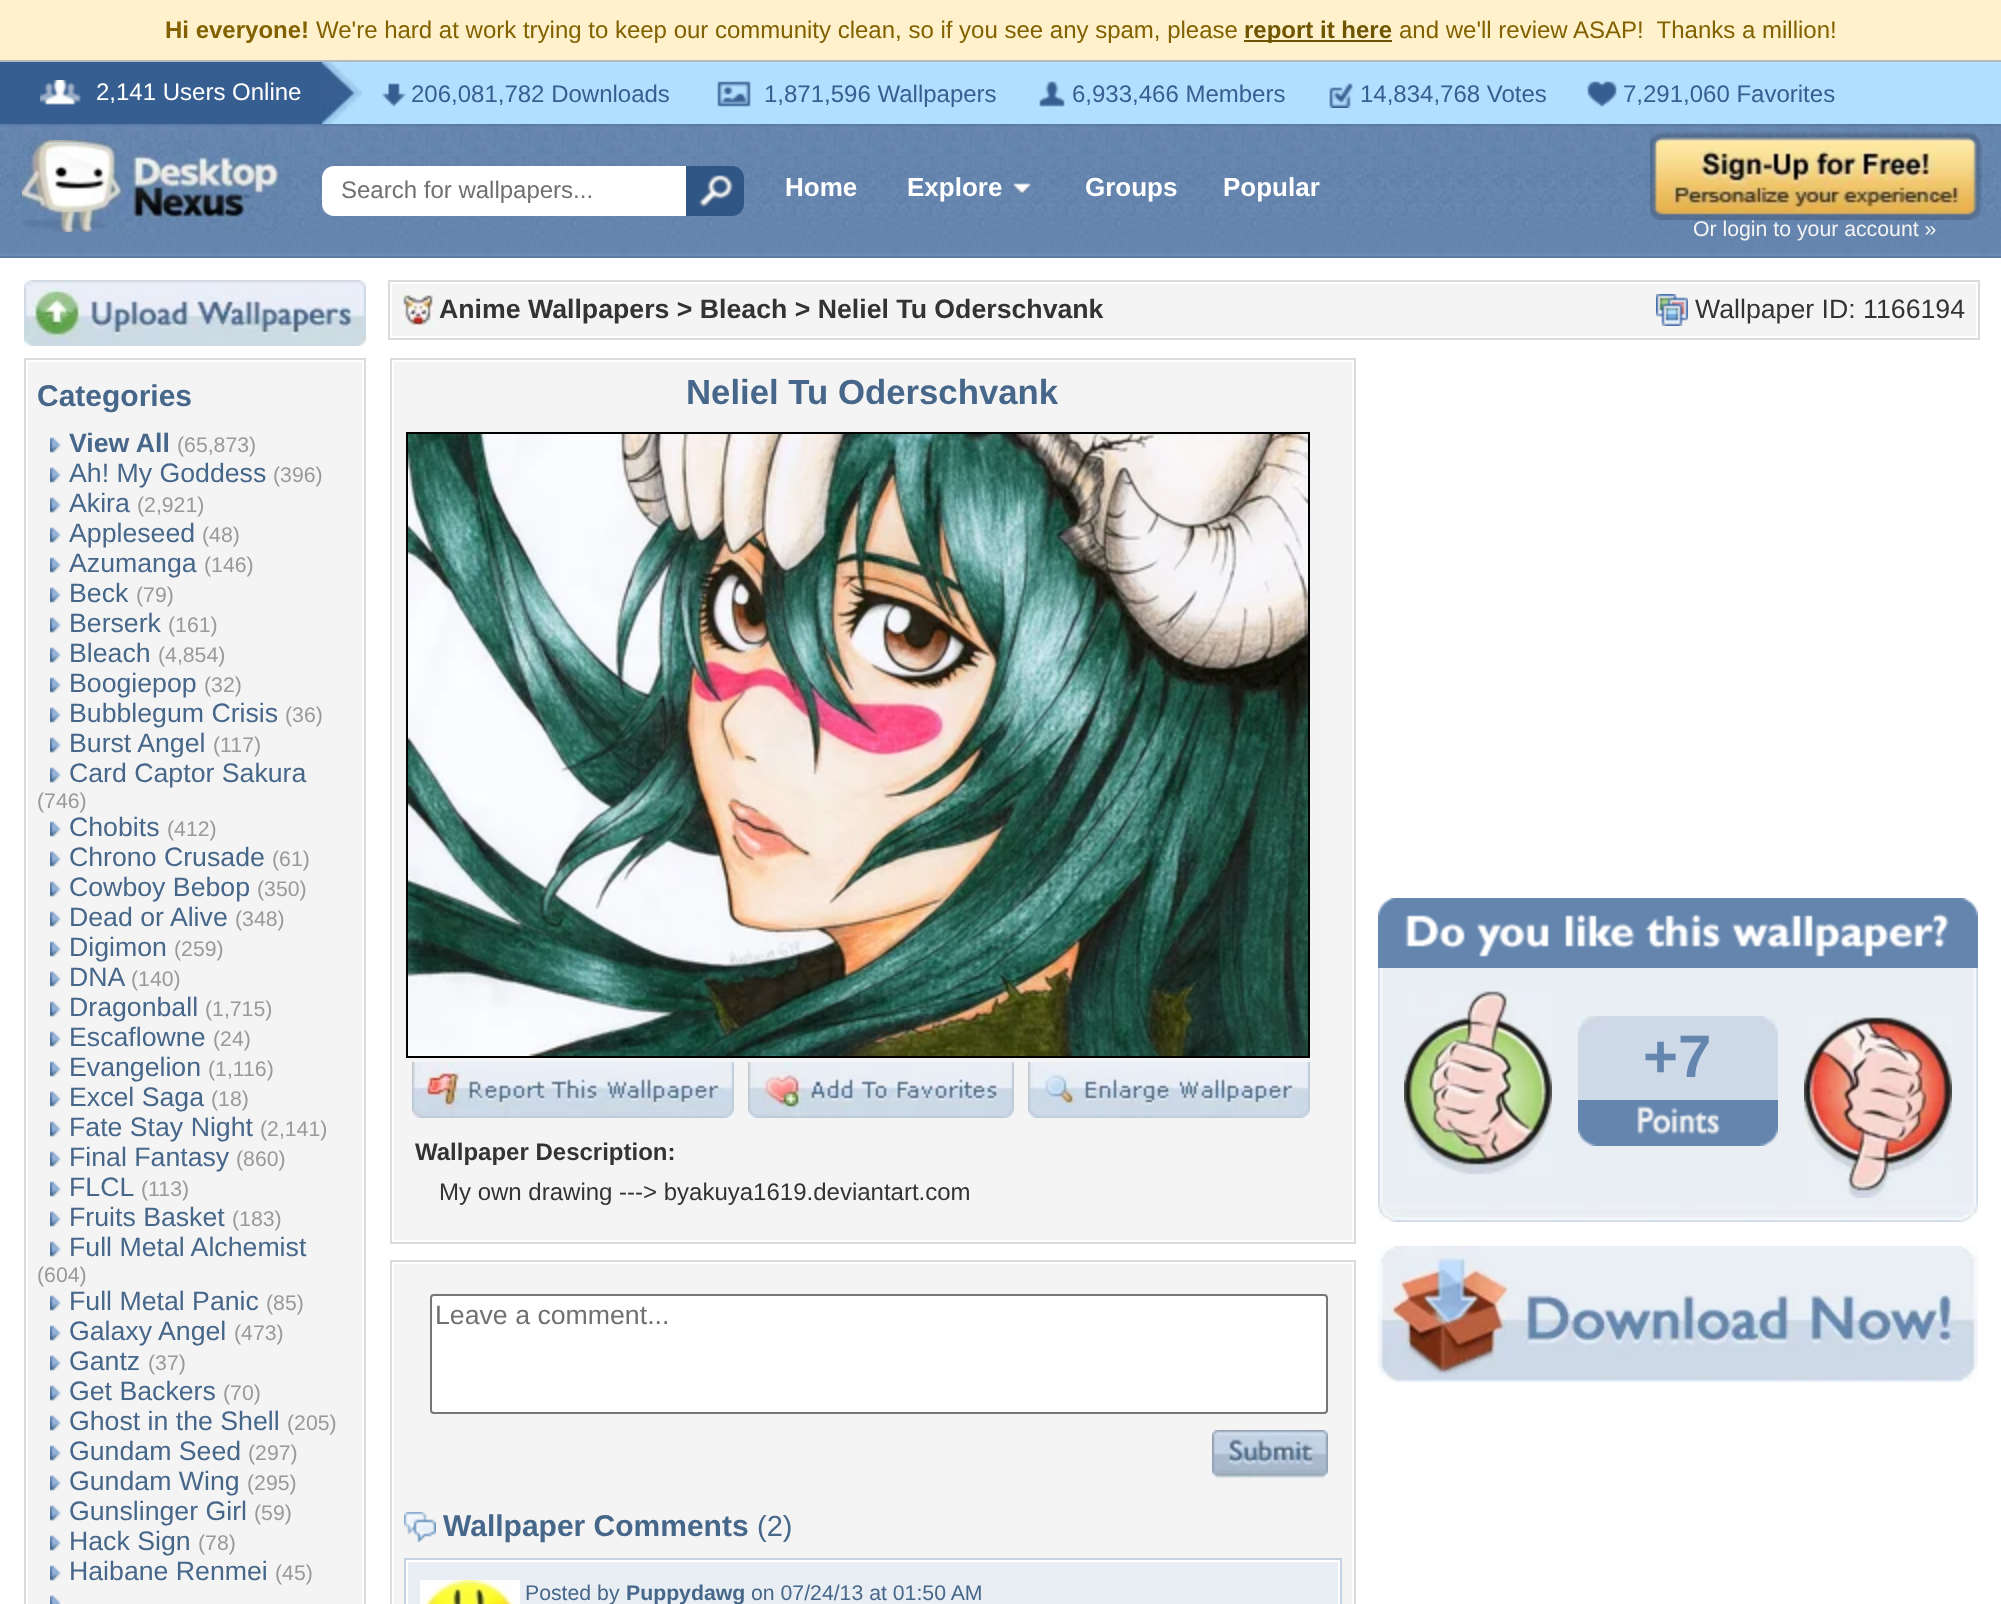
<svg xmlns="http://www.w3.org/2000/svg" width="2001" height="1604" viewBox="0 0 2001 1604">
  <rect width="100%" height="100%" fill="rgb(255,255,255)"/>
  <rect x="0" y="0" width="2001" height="60" fill="rgb(255,241,203)"/>
  <text x="165" y="38" font-family="Liberation Sans" font-size="24" font-weight="bold" fill="rgb(130,98,0)">Hi everyone!</text>
  <text x="316" y="38" font-family="Liberation Sans" font-size="24" fill="rgb(130,98,0)">We're hard at work trying to keep our community clean, so if you see any spam, please</text>
  <rect x="1244" y="40" width="148" height="2" fill="rgb(112,85,0)"/>
  <text x="1244" y="38" font-family="Liberation Sans" font-size="24" font-weight="bold" fill="rgb(112,85,0)">report it here</text>
  <text x="1399" y="38" font-family="Liberation Sans" font-size="24" fill="rgb(130,98,0)" xml:space="preserve">and we'll review ASAP!  Thanks a million!</text>
  <rect x="362" y="62" width="1639" height="62" fill="rgb(177,223,255)"/>
  <rect x="0" y="60" width="2001" height="2" fill="rgb(182,186,192)"/>
  <rect x="0" y="62" width="322" height="62" fill="rgb(55,94,144)"/>
  <image x="40" y="80" width="41" height="25" href="pic1.png"/>
  <text x="96" y="100" font-family="Liberation Sans" font-size="24" fill="rgb(255,255,255)">2,141 Users Online</text>
  <image x="322" y="62" width="40" height="62" href="pic2.png"/>
  <image x="382" y="83" width="24" height="24" href="pic3.png"/>
  <text x="411" y="102" font-family="Liberation Sans" font-size="24" fill="rgb(55,94,144)">206,081,782 Downloads</text>
  <image x="717" y="81" width="34" height="26" href="pic4.png"/>
  <text x="764" y="102" font-family="Liberation Sans" font-size="24" fill="rgb(55,94,144)">1,871,596 Wallpapers</text>
  <image x="1039" y="81" width="26" height="26" href="pic5.png"/>
  <text x="1072" y="102" font-family="Liberation Sans" font-size="24" fill="rgb(55,94,144)">6,933,466 Members</text>
  <image x="1329" y="83" width="24" height="25" href="pic6.png"/>
  <text x="1360" y="102" font-family="Liberation Sans" font-size="24" fill="rgb(55,94,144)">14,834,768 Votes</text>
  <image x="1587" y="81" width="30" height="26" href="pic7.png"/>
  <text x="1623" y="102" font-family="Liberation Sans" font-size="24" fill="rgb(55,94,144)">7,291,060 Favorites</text>
  <image x="0" y="124" width="2001" height="134" href="pic8.png"/>
  <image x="22" y="140" width="256" height="92" href="pic9.png"/>
  <path d="M334 166H718V216H334C327.5 216 322 210.5 322 204V178C322 171.5 327.5 166 334 166Z" fill="rgb(255,255,255)"/>
  <text x="341" y="198" font-family="Liberation Sans" font-size="24" fill="rgb(112,112,112)">Search for wallpapers...</text>
  <path d="M686 166H732C738.5 166 744 171.5 744 178V204C744 210.5 738.5 216 732 216H686Z" fill="rgb(48,86,134)"/>
  <image x="699" y="175" width="34" height="32" href="pic10.png"/>
  <g font-family="Liberation Sans" font-size="26" font-weight="bold" fill="rgb(255,255,255)">
    <text x="785" y="196">Home</text>
    <text x="907" y="196">Explore</text>
  </g>
  <image x="1012" y="183" width="20" height="11" href="pic11.png"/>
  <g font-family="Liberation Sans" font-size="26" font-weight="bold" fill="rgb(255,255,255)">
    <text x="1085" y="196">Groups</text>
    <text x="1223" y="196">Popular</text>
  </g>
  <image x="1650" y="132" width="332" height="88" href="pic12.png"/>
  <text x="1693" y="236" font-family="Liberation Sans" font-size="21.25" fill="rgb(244,244,244)">Or login to your account »</text>
  <image x="24" y="280" width="342" height="66" href="pic13.png"/>
  <rect x="25" y="359" width="340" height="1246" fill="none" stroke="rgb(220,220,220)" stroke-width="2"/>
  <rect x="28" y="362" width="334" height="1242" fill="rgb(244,244,244)"/>
  <text x="37" y="406" font-family="Liberation Sans" font-size="30" font-weight="bold" fill="rgb(70,103,138)">Categories</text>
  <image x="50" y="437" width="11" height="16" href="pic14.png"/>
  <text x="69" y="452" font-family="Liberation Sans" font-size="26.7" font-weight="bold" fill="rgb(70,103,138)">View All</text>
  <text x="177" y="452" font-family="Liberation Sans" font-size="21.25" fill="rgb(153,153,153)">(65,873)</text>
  <image x="50" y="467" width="11" height="16" href="pic14.png"/>
  <text x="69" y="482" font-family="Liberation Sans" font-size="26.7" fill="rgb(70,103,138)">Ah! My Goddess</text>
  <text x="273" y="482" font-family="Liberation Sans" font-size="21.25" fill="rgb(153,153,153)">(396)</text>
  <image x="50" y="497" width="11" height="16" href="pic14.png"/>
  <text x="69" y="512" font-family="Liberation Sans" font-size="26.7" fill="rgb(70,103,138)">Akira</text>
  <text x="137" y="512" font-family="Liberation Sans" font-size="21.25" fill="rgb(153,153,153)">(2,921)</text>
  <image x="50" y="527" width="11" height="16" href="pic14.png"/>
  <text x="69" y="542" font-family="Liberation Sans" font-size="26.7" fill="rgb(70,103,138)">Appleseed</text>
  <text x="202" y="542" font-family="Liberation Sans" font-size="21.25" fill="rgb(153,153,153)">(48)</text>
  <image x="50" y="557" width="11" height="16" href="pic14.png"/>
  <text x="69" y="572" font-family="Liberation Sans" font-size="26.7" fill="rgb(70,103,138)">Azumanga</text>
  <text x="204" y="572" font-family="Liberation Sans" font-size="21.25" fill="rgb(153,153,153)">(146)</text>
  <image x="50" y="587" width="11" height="16" href="pic14.png"/>
  <text x="69" y="602" font-family="Liberation Sans" font-size="26.7" fill="rgb(70,103,138)">Beck</text>
  <text x="136" y="602" font-family="Liberation Sans" font-size="21.25" fill="rgb(153,153,153)">(79)</text>
  <image x="50" y="617" width="11" height="16" href="pic14.png"/>
  <text x="69" y="632" font-family="Liberation Sans" font-size="26.7" fill="rgb(70,103,138)">Berserk</text>
  <text x="168" y="632" font-family="Liberation Sans" font-size="21.25" fill="rgb(153,153,153)">(161)</text>
  <image x="50" y="647" width="11" height="16" href="pic14.png"/>
  <text x="69" y="662" font-family="Liberation Sans" font-size="26.7" fill="rgb(70,103,138)">Bleach</text>
  <text x="158" y="662" font-family="Liberation Sans" font-size="21.25" fill="rgb(153,153,153)">(4,854)</text>
  <image x="50" y="677" width="11" height="16" href="pic14.png"/>
  <text x="69" y="692" font-family="Liberation Sans" font-size="26.7" fill="rgb(70,103,138)">Boogiepop</text>
  <text x="204" y="692" font-family="Liberation Sans" font-size="21.25" fill="rgb(153,153,153)">(32)</text>
  <image x="50" y="707" width="11" height="16" href="pic14.png"/>
  <text x="69" y="722" font-family="Liberation Sans" font-size="26.7" fill="rgb(70,103,138)">Bubblegum Crisis</text>
  <text x="285" y="722" font-family="Liberation Sans" font-size="21.25" fill="rgb(153,153,153)">(36)</text>
  <image x="50" y="737" width="11" height="16" href="pic14.png"/>
  <text x="69" y="752" font-family="Liberation Sans" font-size="26.7" fill="rgb(70,103,138)">Burst Angel</text>
  <text x="213" y="752" font-family="Liberation Sans" font-size="21.25" fill="rgb(153,153,153)">(117)</text>
  <image x="50" y="767" width="11" height="16" href="pic14.png"/>
  <text x="69" y="782" font-family="Liberation Sans" font-size="26.7" fill="rgb(70,103,138)">Card Captor Sakura</text>
  <text x="37" y="808" font-family="Liberation Sans" font-size="21.25" fill="rgb(153,153,153)">(746)</text>
  <image x="50" y="821" width="11" height="16" href="pic14.png"/>
  <text x="69" y="836" font-family="Liberation Sans" font-size="26.7" fill="rgb(70,103,138)">Chobits</text>
  <text x="167" y="836" font-family="Liberation Sans" font-size="21.25" fill="rgb(153,153,153)">(412)</text>
  <image x="50" y="851" width="11" height="16" href="pic14.png"/>
  <text x="69" y="866" font-family="Liberation Sans" font-size="26.7" fill="rgb(70,103,138)">Chrono Crusade</text>
  <text x="272" y="866" font-family="Liberation Sans" font-size="21.25" fill="rgb(153,153,153)">(61)</text>
  <image x="50" y="881" width="11" height="16" href="pic14.png"/>
  <text x="69" y="896" font-family="Liberation Sans" font-size="26.7" fill="rgb(70,103,138)">Cowboy Bebop</text>
  <text x="257" y="896" font-family="Liberation Sans" font-size="21.25" fill="rgb(153,153,153)">(350)</text>
  <image x="50" y="911" width="11" height="16" href="pic14.png"/>
  <text x="69" y="926" font-family="Liberation Sans" font-size="26.7" fill="rgb(70,103,138)">Dead or Alive</text>
  <text x="235" y="926" font-family="Liberation Sans" font-size="21.25" fill="rgb(153,153,153)">(348)</text>
  <image x="50" y="941" width="11" height="16" href="pic14.png"/>
  <text x="69" y="956" font-family="Liberation Sans" font-size="26.7" fill="rgb(70,103,138)">Digimon</text>
  <text x="174" y="956" font-family="Liberation Sans" font-size="21.25" fill="rgb(153,153,153)">(259)</text>
  <image x="50" y="971" width="11" height="16" href="pic14.png"/>
  <text x="69" y="986" font-family="Liberation Sans" font-size="26.7" fill="rgb(70,103,138)">DNA</text>
  <text x="131" y="986" font-family="Liberation Sans" font-size="21.25" fill="rgb(153,153,153)">(140)</text>
  <image x="50" y="1001" width="11" height="16" href="pic14.png"/>
  <text x="69" y="1016" font-family="Liberation Sans" font-size="26.7" fill="rgb(70,103,138)">Dragonball</text>
  <text x="205" y="1016" font-family="Liberation Sans" font-size="21.25" fill="rgb(153,153,153)">(1,715)</text>
  <image x="50" y="1031" width="11" height="16" href="pic14.png"/>
  <text x="69" y="1046" font-family="Liberation Sans" font-size="26.7" fill="rgb(70,103,138)">Escaflowne</text>
  <text x="213" y="1046" font-family="Liberation Sans" font-size="21.25" fill="rgb(153,153,153)">(24)</text>
  <image x="50" y="1061" width="11" height="16" href="pic14.png"/>
  <text x="69" y="1076" font-family="Liberation Sans" font-size="26.7" fill="rgb(70,103,138)">Evangelion</text>
  <text x="208" y="1076" font-family="Liberation Sans" font-size="21.25" fill="rgb(153,153,153)">(1,116)</text>
  <image x="50" y="1091" width="11" height="16" href="pic14.png"/>
  <text x="69" y="1106" font-family="Liberation Sans" font-size="26.7" fill="rgb(70,103,138)">Excel Saga</text>
  <text x="211" y="1106" font-family="Liberation Sans" font-size="21.25" fill="rgb(153,153,153)">(18)</text>
  <image x="50" y="1121" width="11" height="16" href="pic14.png"/>
  <text x="69" y="1136" font-family="Liberation Sans" font-size="26.7" fill="rgb(70,103,138)">Fate Stay Night</text>
  <text x="260" y="1136" font-family="Liberation Sans" font-size="21.25" fill="rgb(153,153,153)">(2,141)</text>
  <image x="50" y="1151" width="11" height="16" href="pic14.png"/>
  <text x="69" y="1166" font-family="Liberation Sans" font-size="26.7" fill="rgb(70,103,138)">Final Fantasy</text>
  <text x="236" y="1166" font-family="Liberation Sans" font-size="21.25" fill="rgb(153,153,153)">(860)</text>
  <image x="50" y="1181" width="11" height="16" href="pic14.png"/>
  <text x="69" y="1196" font-family="Liberation Sans" font-size="26.7" fill="rgb(70,103,138)">FLCL</text>
  <text x="141" y="1196" font-family="Liberation Sans" font-size="21.25" fill="rgb(153,153,153)">(113)</text>
  <image x="50" y="1211" width="11" height="16" href="pic14.png"/>
  <text x="69" y="1226" font-family="Liberation Sans" font-size="26.7" fill="rgb(70,103,138)">Fruits Basket</text>
  <text x="232" y="1226" font-family="Liberation Sans" font-size="21.25" fill="rgb(153,153,153)">(183)</text>
  <image x="50" y="1241" width="11" height="16" href="pic14.png"/>
  <text x="69" y="1256" font-family="Liberation Sans" font-size="26.7" fill="rgb(70,103,138)">Full Metal Alchemist</text>
  <text x="37" y="1282" font-family="Liberation Sans" font-size="21.25" fill="rgb(153,153,153)">(604)</text>
  <image x="50" y="1295" width="11" height="16" href="pic14.png"/>
  <text x="69" y="1310" font-family="Liberation Sans" font-size="26.7" fill="rgb(70,103,138)">Full Metal Panic</text>
  <text x="266" y="1310" font-family="Liberation Sans" font-size="21.25" fill="rgb(153,153,153)">(85)</text>
  <image x="50" y="1325" width="11" height="16" href="pic14.png"/>
  <text x="69" y="1340" font-family="Liberation Sans" font-size="26.7" fill="rgb(70,103,138)">Galaxy Angel</text>
  <text x="234" y="1340" font-family="Liberation Sans" font-size="21.25" fill="rgb(153,153,153)">(473)</text>
  <image x="50" y="1355" width="11" height="16" href="pic14.png"/>
  <text x="69" y="1370" font-family="Liberation Sans" font-size="26.7" fill="rgb(70,103,138)">Gantz</text>
  <text x="148" y="1370" font-family="Liberation Sans" font-size="21.25" fill="rgb(153,153,153)">(37)</text>
  <image x="50" y="1385" width="11" height="16" href="pic14.png"/>
  <text x="69" y="1400" font-family="Liberation Sans" font-size="26.7" fill="rgb(70,103,138)">Get Backers</text>
  <text x="223" y="1400" font-family="Liberation Sans" font-size="21.25" fill="rgb(153,153,153)">(70)</text>
  <image x="50" y="1415" width="11" height="16" href="pic14.png"/>
  <text x="69" y="1430" font-family="Liberation Sans" font-size="26.7" fill="rgb(70,103,138)">Ghost in the Shell</text>
  <text x="287" y="1430" font-family="Liberation Sans" font-size="21.25" fill="rgb(153,153,153)">(205)</text>
  <image x="50" y="1445" width="11" height="16" href="pic14.png"/>
  <text x="69" y="1460" font-family="Liberation Sans" font-size="26.7" fill="rgb(70,103,138)">Gundam Seed</text>
  <text x="248" y="1460" font-family="Liberation Sans" font-size="21.25" fill="rgb(153,153,153)">(297)</text>
  <image x="50" y="1475" width="11" height="16" href="pic14.png"/>
  <text x="69" y="1490" font-family="Liberation Sans" font-size="26.7" fill="rgb(70,103,138)">Gundam Wing</text>
  <text x="247" y="1490" font-family="Liberation Sans" font-size="21.25" fill="rgb(153,153,153)">(295)</text>
  <image x="50" y="1505" width="11" height="16" href="pic14.png"/>
  <text x="69" y="1520" font-family="Liberation Sans" font-size="26.7" fill="rgb(70,103,138)">Gunslinger Girl</text>
  <text x="254" y="1520" font-family="Liberation Sans" font-size="21.25" fill="rgb(153,153,153)">(59)</text>
  <image x="50" y="1535" width="11" height="16" href="pic14.png"/>
  <text x="69" y="1550" font-family="Liberation Sans" font-size="26.7" fill="rgb(70,103,138)">Hack Sign</text>
  <text x="198" y="1550" font-family="Liberation Sans" font-size="21.25" fill="rgb(153,153,153)">(78)</text>
  <image x="50" y="1565" width="11" height="16" href="pic14.png"/>
  <text x="69" y="1580" font-family="Liberation Sans" font-size="26.7" fill="rgb(70,103,138)">Haibane Renmei</text>
  <text x="275" y="1580" font-family="Liberation Sans" font-size="21.25" fill="rgb(153,153,153)">(45)</text>
  <image x="50" y="1595" width="11" height="9" href="pic15.png"/>
  <rect x="389" y="281" width="1590" height="58" fill="none" stroke="rgb(220,220,220)" stroke-width="2"/>
  <rect x="392" y="284" width="1584" height="52" fill="rgb(244,244,244)"/>
  <image x="402" y="294" width="32" height="32" href="pic16.png"/>
  <text x="439" y="318" font-family="Liberation Sans" font-size="26.7" font-weight="bold" fill="rgb(51,51,51)">Anime Wallpapers &gt; Bleach &gt; Neliel Tu Oderschvank</text>
  <image x="1656" y="294" width="32" height="32" href="pic17.png"/>
  <text x="1695" y="318" font-family="Liberation Sans" font-size="26.7" fill="rgb(51,51,51)">Wallpaper ID: 1166194</text>
  <rect x="391" y="359" width="964" height="884" fill="none" stroke="rgb(220,220,220)" stroke-width="2"/>
  <rect x="394" y="362" width="958" height="878" fill="rgb(244,244,244)"/>
  <text x="686" y="404" font-family="Liberation Sans" font-size="34.75" font-weight="bold" fill="rgb(70,103,138)">Neliel Tu Oderschvank</text>
  <rect x="407" y="433" width="902" height="624" fill="none" stroke="rgb(0,0,0)" stroke-width="2"/>
  <image x="408" y="434" width="900" height="622" href="pic18.png"/>
  <image x="412" y="1062" width="322" height="56" href="pic19.png"/>
  <image x="748" y="1062" width="266" height="56" href="pic20.png"/>
  <image x="1028" y="1062" width="282" height="56" href="pic21.png"/>
  <text x="415" y="1160" font-family="Liberation Sans" font-size="24" font-weight="bold" fill="rgb(51,51,51)">Wallpaper Description:</text>
  <text x="439" y="1200" font-family="Liberation Sans" font-size="24" fill="rgb(51,51,51)">My own drawing ---&gt; byakuya1619.deviantart.com</text>
  <rect x="391" y="1261" width="964" height="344" fill="none" stroke="rgb(220,220,220)" stroke-width="2"/>
  <rect x="394" y="1264" width="958" height="340" fill="rgb(244,244,244)"/>
  <rect x="431" y="1295" width="896" height="118" rx="3" fill="rgb(255,255,255)" stroke="rgb(118,118,118)" stroke-width="2"/>
  <text x="435" y="1324" font-family="Liberation Sans" font-size="26.7" fill="rgb(112,112,112)">Leave a comment...</text>
  <image x="1212" y="1430" width="116" height="48" href="pic22.png"/>
  <image x="404" y="1512" width="32" height="30" href="pic23.png"/>
  <text x="443" y="1536" font-family="Liberation Sans" font-size="30" font-weight="bold" fill="rgb(70,103,138)">Wallpaper Comments</text>
  <text x="757" y="1536" font-family="Liberation Sans" font-size="29" fill="rgb(70,103,138)">(2)</text>
  <rect x="405" y="1559" width="936" height="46" fill="rgb(255,255,255)" stroke="rgb(197,210,226)" stroke-width="2"/>
  <rect x="408" y="1562" width="930" height="42" fill="rgb(233,238,244)"/>
  <image x="420" y="1580" width="100" height="24" href="pic24.png"/>
  <text x="525" y="1600" font-family="Liberation Sans" font-size="21.25" fill="rgb(70,103,138)">Posted by</text>
  <text x="626" y="1600" font-family="Liberation Sans" font-size="21.25" font-weight="bold" fill="rgb(70,103,138)">Puppydawg</text>
  <text x="751" y="1600" font-family="Liberation Sans" font-size="21.25" fill="rgb(70,103,138)">on 07/24/13 at 01:50 AM</text>
  <image x="1378" y="898" width="600" height="70" href="pic25.png"/>
  <image x="1378" y="968" width="600" height="236" href="pic26.png"/>
  <image x="1404" y="990" width="148" height="185" href="pic27.png"/>
  <rect x="1578" y="1032" width="200" height="68" fill="rgb(205,217,231)"/>
  <image x="1578" y="1016" width="200" height="16" href="pic28.png"/>
  <text x="1643" y="1077" font-family="Liberation Sans" font-size="60" font-weight="bold" fill="rgb(100,133,174)">+7</text>
  <image x="1578" y="1100" width="200" height="46" href="pic29.png"/>
  <image x="1804" y="1015" width="148" height="183" href="pic30.png"/>
  <image x="1378" y="1204" width="600" height="18" href="pic31.png"/>
  <image x="1378" y="1246" width="600" height="136" href="pic32.png"/>
</svg>
